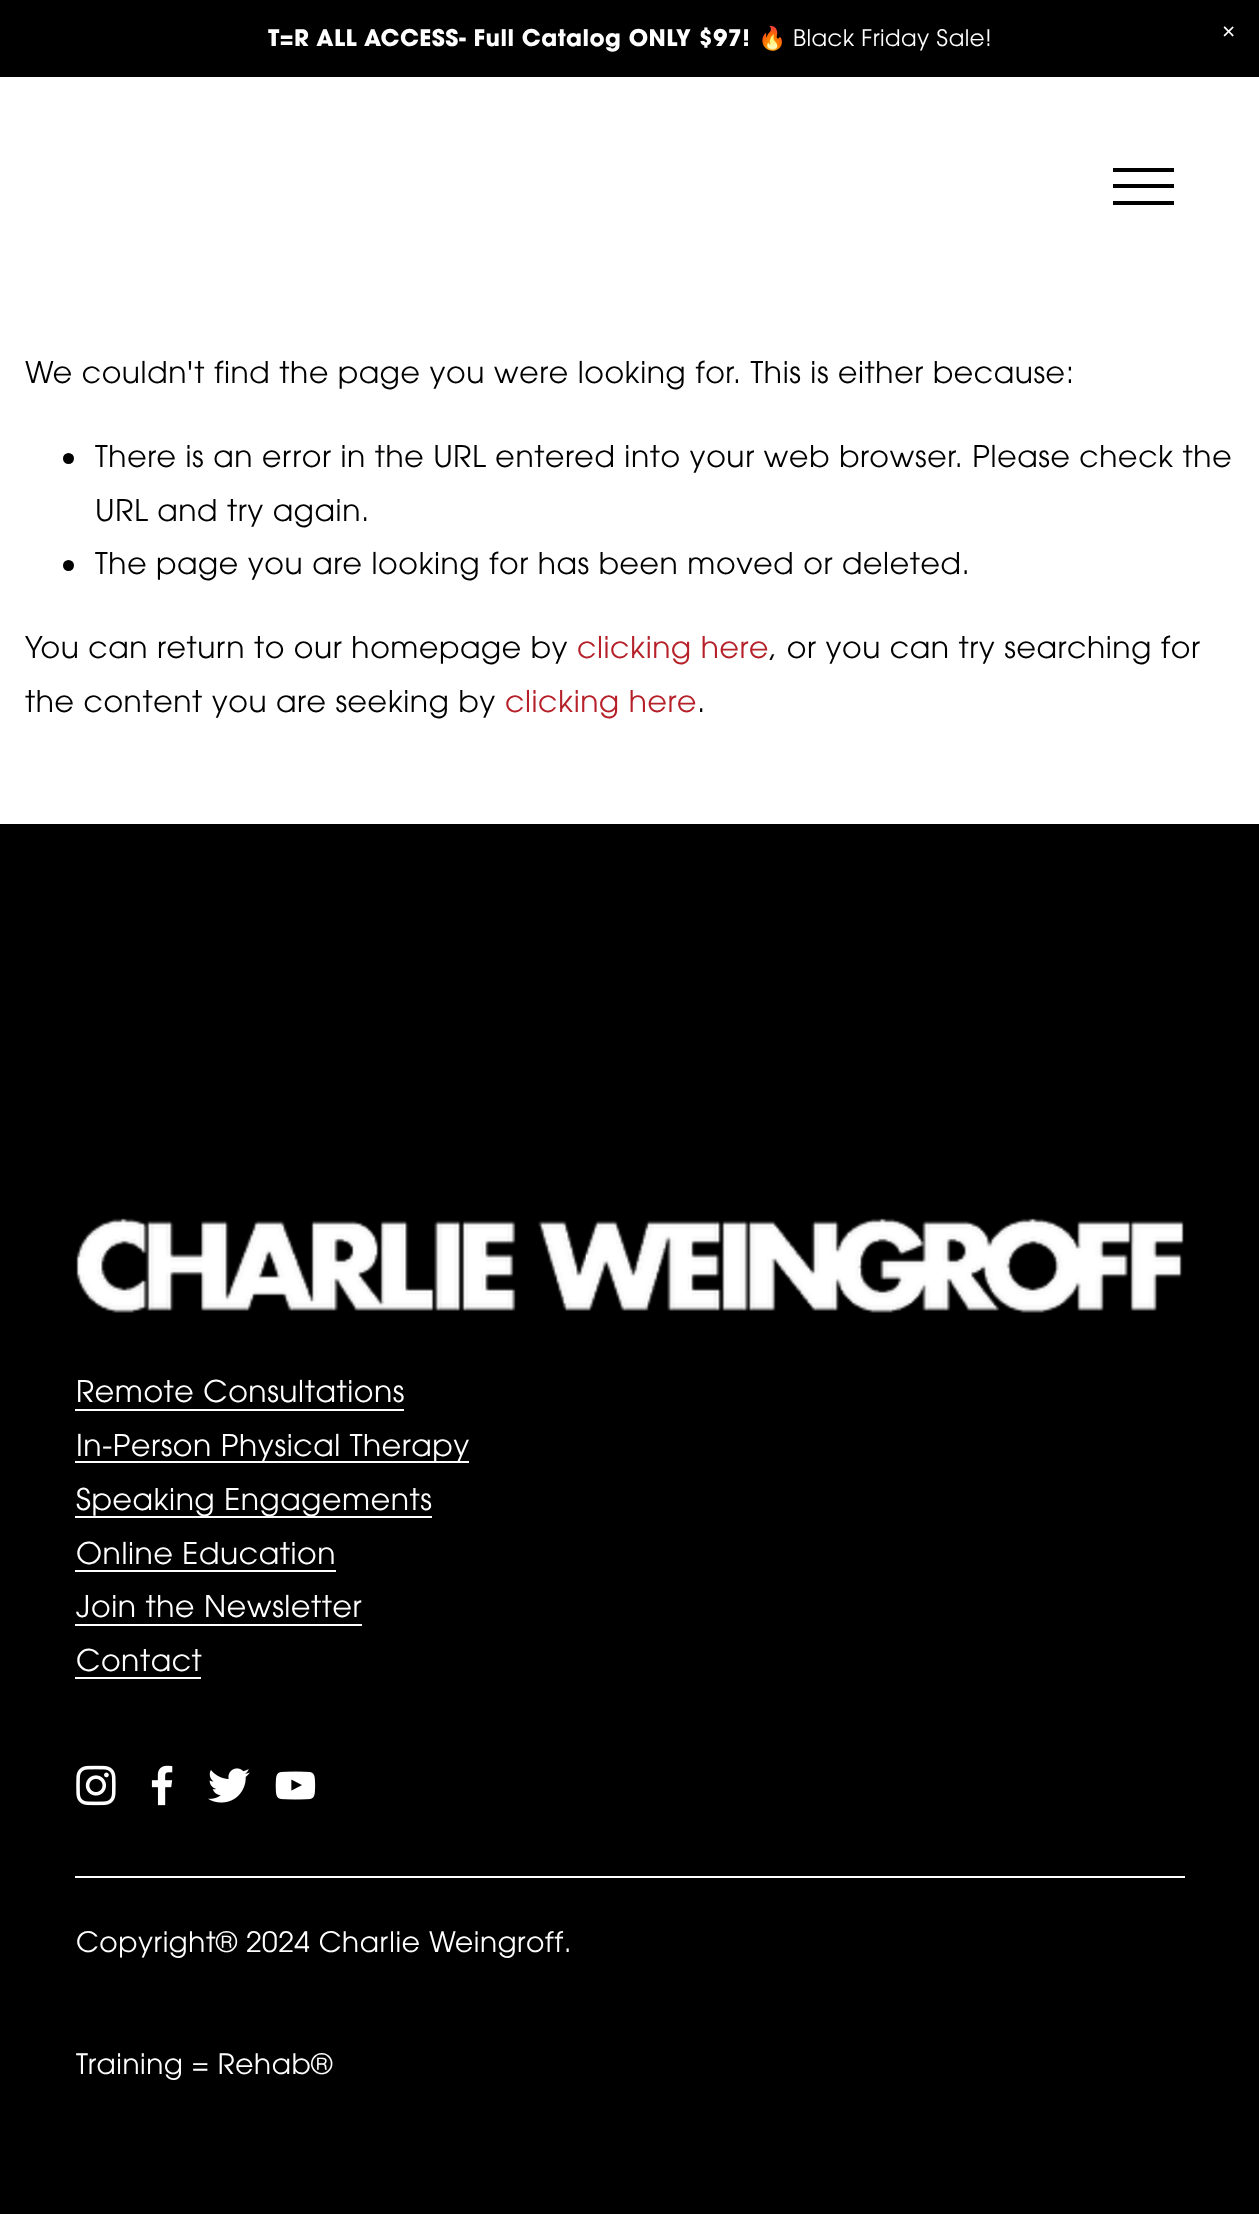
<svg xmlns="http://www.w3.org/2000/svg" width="1259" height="2214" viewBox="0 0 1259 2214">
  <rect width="100%" height="100%" fill="rgb(255,255,255)"/>
  <rect x="0" y="0" width="1259" height="77" fill="rgb(0,0,0)"/>
  <text x="268" y="46" font-family="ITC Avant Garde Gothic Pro" font-size="22.75" font-weight="bold" letter-spacing="0.45" fill="rgb(255,255,255)">T=R ALL ACCESS- Full Catalog ONLY $97!</text>
  <text x="758" y="46" font-family="Noto Color Emoji" font-size="22.75" letter-spacing="0.45" fill="rgb(255,255,255)">🔥</text>
  <text x="793" y="46" font-family="ITC Avant Garde Gothic Pro" font-size="22.75" font-weight="300" letter-spacing="0.45" fill="rgb(255,255,255)">Black Friday Sale!</text>
  <text x="1222" y="39" font-family="Liberation Sans" font-size="22.75" fill="rgb(255,255,255)">×</text>
  <rect x="1113" y="168" width="61" height="4" fill="rgb(0,0,0)"/>
  <rect x="1113" y="184" width="61" height="4" fill="rgb(0,0,0)"/>
  <rect x="1113" y="201" width="61" height="4" fill="rgb(0,0,0)"/>
  <text x="25" y="383" font-family="ITC Avant Garde Gothic Pro" font-size="29.9" font-weight="300" letter-spacing="0.6" fill="rgb(0,0,0)">We couldn't find the page you were looking for. This is either because:</text>
  <circle cx="68.5" cy="458.5" r="5.5" fill="rgb(0,0,0)"/>
  <g font-family="ITC Avant Garde Gothic Pro" font-size="29.9" font-weight="300" letter-spacing="0.6" fill="rgb(0,0,0)">
    <text>
      <tspan x="95" y="467">There is an error in the URL entered into your web browser. Please check the</tspan>
      <tspan x="95" y="521">URL and try again.</tspan>
    </text>
  </g>
  <circle cx="68.5" cy="565.5" r="5.5" fill="rgb(0,0,0)"/>
  <g font-family="ITC Avant Garde Gothic Pro" font-size="29.9" font-weight="300" letter-spacing="0.6" fill="rgb(0,0,0)">
    <text x="95" y="574">The page you are looking for has been moved or deleted.</text>
    <text x="25" y="658">You can return to our homepage by</text>
  </g>
  <text x="577" y="658" font-family="ITC Avant Garde Gothic Pro" font-size="29.9" font-weight="300" letter-spacing="0.6" fill="rgb(181,32,41)">clicking here</text>
  <g font-family="ITC Avant Garde Gothic Pro" font-size="29.9" font-weight="300" letter-spacing="0.6" fill="rgb(0,0,0)">
    <text x="769" y="658">, or you can try searching for</text>
    <text x="25" y="712">the content you are seeking by</text>
  </g>
  <text x="505" y="712" font-family="ITC Avant Garde Gothic Pro" font-size="29.9" font-weight="300" letter-spacing="0.6" fill="rgb(181,32,41)">clicking here</text>
  <text x="697" y="712" font-family="ITC Avant Garde Gothic Pro" font-size="29.9" font-weight="300" letter-spacing="0.6" fill="rgb(0,0,0)">.</text>
  <rect x="0" y="824" width="1259" height="1390" fill="rgb(0,0,0)"/>
  <image x="76" y="1218" width="1108" height="95" href="pic1.png"/>
  <text x="76" y="1402" font-family="ITC Avant Garde Gothic Pro" font-size="29.9" font-weight="300" letter-spacing="0.6" fill="rgb(255,255,255)">Remote Consultations</text>
  <rect x="75" y="1409" width="329" height="2" fill="rgb(255,255,255)"/>
  <rect x="75" y="1461" width="394" height="2" fill="rgb(255,255,255)"/>
  <text x="76" y="1456" font-family="ITC Avant Garde Gothic Pro" font-size="29.9" font-weight="300" letter-spacing="0.6" fill="rgb(255,255,255)">In-Person Physical Therapy</text>
  <rect x="75" y="1516" width="357" height="2" fill="rgb(255,255,255)"/>
  <g font-family="ITC Avant Garde Gothic Pro" font-size="29.9" font-weight="300" letter-spacing="0.6" fill="rgb(255,255,255)">
    <text>
      <tspan x="76" y="1510">Speaking Engagements</tspan>
      <tspan x="76" y="1564">Online Education</tspan>
    </text>
  </g>
  <rect x="75" y="1570" width="261" height="2" fill="rgb(255,255,255)"/>
  <text x="76" y="1617" font-family="ITC Avant Garde Gothic Pro" font-size="29.9" font-weight="300" letter-spacing="0.6" fill="rgb(255,255,255)">Join the Newsletter</text>
  <rect x="75" y="1624" width="287" height="2" fill="rgb(255,255,255)"/>
  <text x="76" y="1671" font-family="ITC Avant Garde Gothic Pro" font-size="29.9" font-weight="300" letter-spacing="0.6" fill="rgb(255,255,255)">Contact</text>
  <rect x="75" y="1677" width="126" height="2" fill="rgb(255,255,255)"/>
  <image x="76" y="1765" width="40" height="41" href="pic2.png"/>
  <image x="151" y="1765" width="22" height="41" href="pic3.png"/>
  <image x="208" y="1768" width="42" height="35" href="pic4.png"/>
  <image x="275" y="1771" width="41" height="29" href="pic5.png"/>
  <rect x="75" y="1876" width="1110" height="2" fill="rgb(255,255,255)"/>
  <g font-family="ITC Avant Garde Gothic Pro" font-size="28" font-weight="300" letter-spacing="0.6" fill="rgb(255,255,255)">
    <text x="76" y="1952">Copyright® 2024 Charlie Weingroff.</text>
    <text x="76" y="2074">Training = Rehab®</text>
  </g>
</svg>
